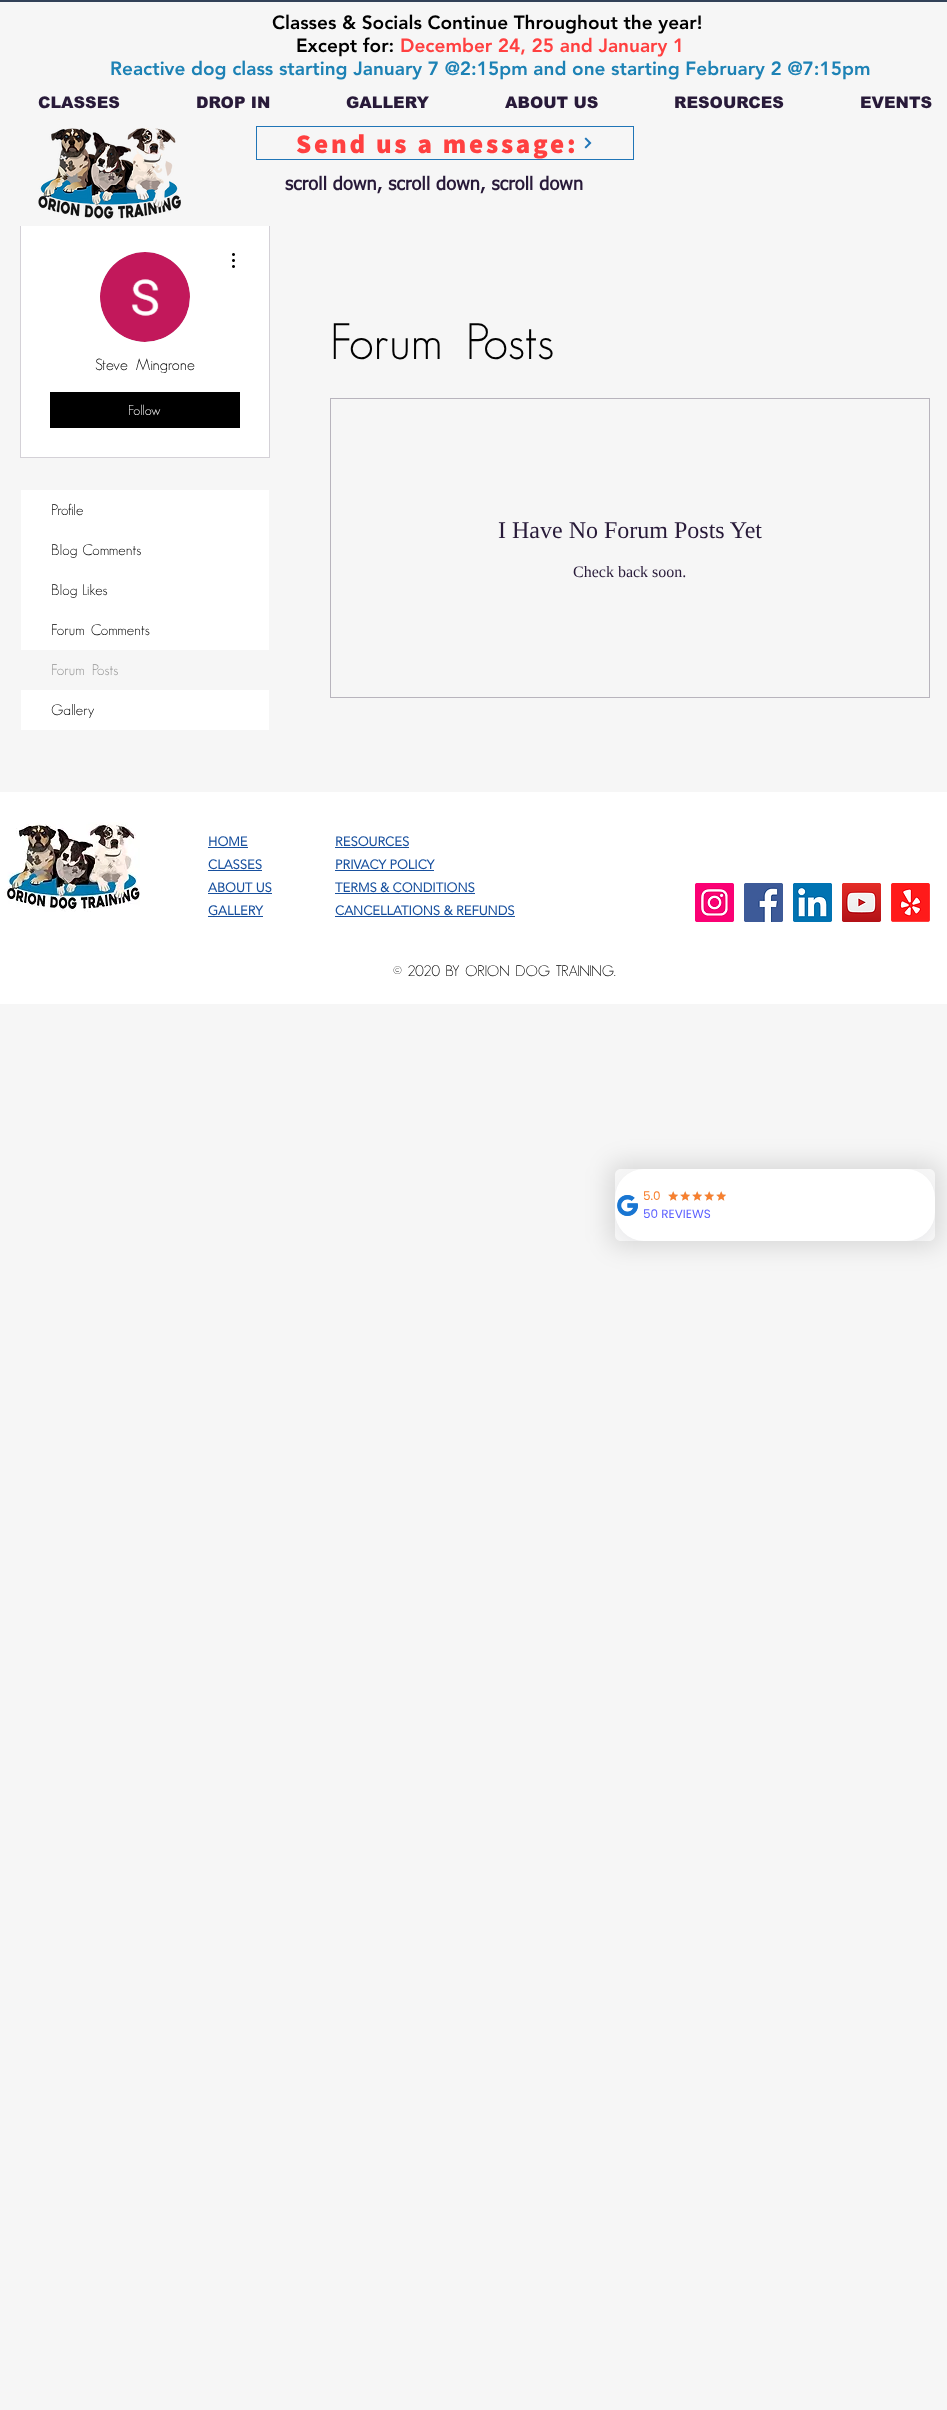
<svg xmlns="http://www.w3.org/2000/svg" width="947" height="2410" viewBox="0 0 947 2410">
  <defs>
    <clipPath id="clip1"><path d="M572 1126H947V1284H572ZM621 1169H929C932.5 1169 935 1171.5 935 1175V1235C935 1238.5 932.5 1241 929 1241H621C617.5 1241 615 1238.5 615 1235V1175C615 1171.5 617.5 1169 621 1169Z" clip-rule="evenodd"/></clipPath>
    <clipPath id="clip2"><rect x="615" y="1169" width="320" height="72" rx="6"/></clipPath>
  </defs>
  <rect width="100%" height="100%" fill="rgb(246,246,246)"/>
  <rect x="0" y="0" width="947" height="2" fill="rgb(50,65,88)"/>
  <g font-family="'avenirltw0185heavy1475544'" font-size="19" font-weight="900" fill="rgb(0,0,0)">
    <text x="272" y="29">Classes &amp; Socials Continue Throughout the year!</text>
    <text x="296" y="52">Except for:</text>
  </g>
  <text x="400" y="52" font-family="'avenirltw0185heavy1475544'" font-size="19" font-weight="900" fill="rgb(255,64,64)">December 24, 25 and January 1</text>
  <text x="110" y="75" font-family="'avenirltw0185heavy1475544'" font-size="19" font-weight="900" fill="rgb(29,130,181)">Reactive dog class starting January 7 @2:15pm and one starting February 2 @7:15pm</text>
  <g font-family="arial" font-size="16" font-weight="900" fill="rgb(40,26,57)">
    <text x="38" y="108">CLASSES</text>
    <text x="196" y="108">DROP IN</text>
    <text x="346" y="108">GALLERY</text>
    <text x="505" y="108">ABOUT US</text>
    <text x="674" y="108">RESOURCES</text>
    <text x="860" y="108">EVENTS</text>
  </g>
  <image x="38" y="128" width="143" height="91" href="pic1.png"/>
  <rect x="256.5" y="126.5" width="377" height="33" fill="none" stroke="rgb(32,117,183)"/>
  <text x="296" y="153" font-family="Assistant" font-size="27" font-weight="800" letter-spacing="2.75" fill="rgb(255,64,64)">Send us a message:</text>
  <image x="584" y="137" width="8" height="12" href="pic2.png"/>
  <text x="285" y="190" font-family="tahoma" font-size="18" font-weight="bold" letter-spacing="0.2" fill="rgb(40,26,57)">scroll down, scroll down, scroll down</text>
  <rect x="21" y="226" width="248" height="231" fill="rgb(255,255,255)"/>
  <rect x="20.5" y="222.5" width="249" height="235" fill="none" stroke="rgb(212,209,215)"/>
  <rect x="20" y="222" width="250" height="4" fill="rgb(246,246,246)"/>
  <circle cx="145" cy="297" r="45" fill="rgb(216,216,216)"/>
  <image x="100" y="252" width="90" height="90" href="pic3.png"/>
  <image x="232" y="253" width="3" height="15" href="pic4.png"/>
  <text x="95" y="370" word-spacing="4" font-family="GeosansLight" font-size="16" font-weight="300" fill="rgb(0,0,0)">Steve Mingrone</text>
  <rect x="50" y="392" width="190" height="36" fill="rgb(0,0,0)"/>
  <text x="128" y="415" font-family="GeosansLight" font-size="14" font-weight="300" fill="rgb(246,246,246)">Follow</text>
  <rect x="21" y="490" width="248" height="160" fill="rgb(255,255,255)"/>
  <g font-family="GeosansLight" font-size="15" font-weight="300" fill="rgb(0,0,0)">
    <text x="51" y="515">Profile</text>
    <text x="51" y="555" word-spacing="1">Blog Comments</text>
    <text x="51" y="595" word-spacing="1">Blog Likes</text>
    <text x="51" y="635" word-spacing="2">Forum Comments</text>
  </g>
  <text x="51" y="675" word-spacing="3" font-family="GeosansLight" font-size="15" font-weight="300" fill="rgb(148,148,148)">Forum Posts</text>
  <rect x="21" y="690" width="248" height="40" fill="rgb(255,255,255)"/>
  <text x="51" y="715" font-family="GeosansLight" font-size="15" font-weight="300" fill="rgb(0,0,0)">Gallery</text>
  <text x="330" y="359" word-spacing="10" font-family="GeosansLight" font-size="50" font-weight="300" fill="rgb(0,0,0)">Forum Posts</text>
  <rect x="330.5" y="398.5" width="599" height="299" fill="none" stroke="rgb(184,180,189)"/>
  <text x="498" y="538" font-family="Liberation Serif" font-size="24" fill="rgb(40,26,57)">I Have No Forum Posts Yet</text>
  <text x="573" y="577" font-family="Liberation Serif" font-size="16" fill="rgb(40,26,57)">Check back soon.</text>
  <rect x="0" y="792" width="947" height="212" fill="rgb(255,255,255)"/>
  <image x="4" y="822" width="136" height="90" href="pic5.png"/>
  <text x="208" y="846" font-family="'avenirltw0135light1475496'" font-size="13" font-weight="bold" fill="rgb(24,80,158)">HOME</text>
  <rect x="208" y="847" width="40" height="1" fill="rgb(24,80,158)"/>
  <text x="208" y="869" font-family="'avenirltw0135light1475496'" font-size="13" font-weight="bold" fill="rgb(24,80,158)">CLASSES</text>
  <rect x="208" y="870" width="54" height="1" fill="rgb(24,80,158)"/>
  <text x="208" y="892" font-family="'avenirltw0135light1475496'" font-size="13" font-weight="bold" fill="rgb(24,80,158)">ABOUT US</text>
  <rect x="208" y="893" width="64" height="1" fill="rgb(24,80,158)"/>
  <text x="208" y="915" font-family="'avenirltw0135light1475496'" font-size="13" font-weight="bold" fill="rgb(24,80,158)">GALLERY</text>
  <rect x="208" y="916" width="55" height="1" fill="rgb(24,80,158)"/>
  <text x="335" y="846" font-family="'avenirltw0135light1475496'" font-size="13" font-weight="bold" fill="rgb(24,80,158)">RESOURCES</text>
  <rect x="335" y="847" width="74" height="1" fill="rgb(24,80,158)"/>
  <text x="335" y="869" font-family="'avenirltw0135light1475496'" font-size="13" font-weight="bold" fill="rgb(24,80,158)">PRIVACY POLICY</text>
  <rect x="335" y="870" width="99" height="1" fill="rgb(24,80,158)"/>
  <text x="335" y="892" font-family="'avenirltw0135light1475496'" font-size="13" font-weight="bold" fill="rgb(24,80,158)">TERMS &amp; CONDITIONS</text>
  <rect x="335" y="893" width="140" height="1" fill="rgb(24,80,158)"/>
  <text x="335" y="915" font-family="'avenirltw0135light1475496'" font-size="13" font-weight="bold" fill="rgb(24,80,158)">CANCELLATIONS &amp; REFUNDS</text>
  <rect x="335" y="916" width="180" height="1" fill="rgb(24,80,158)"/>
  <image x="695" y="883" width="39" height="39" href="pic6.png"/>
  <image x="744" y="883" width="39" height="39" href="pic7.png"/>
  <image x="793" y="883" width="39" height="39" href="pic8.png"/>
  <image x="842" y="883" width="39" height="39" href="pic9.png"/>
  <image x="891" y="883" width="39" height="39" href="pic10.png"/>
  <text x="393" y="976" word-spacing="1.5" font-family="GeosansLight" font-size="15" font-weight="300" fill="rgb(0,0,0)">© 2020 BY ORION DOG TRAINING.</text>
  <g clip-path="url(#clip1)">
    <rect x="609" y="1163" width="332" height="84" rx="12" fill="rgba(0,0,0,0.12)" filter="blur(12px)"/>
  </g>
  <g clip-path="url(#clip2)">
    <rect x="615" y="1173" width="320" height="72" rx="29" fill="rgba(76,76,109,0.06)" filter="blur(6px)"/>
  </g>
  <rect x="615" y="1169" width="320" height="72" rx="29" fill="rgb(255,255,255)"/>
  <image x="617" y="1195" width="21" height="21" href="pic11.png"/>
  <text x="643" y="1200" font-family="Poppins" font-size="12" fill="rgb(247,128,47)">5.0</text>
  <image x="668" y="1191" width="10" height="10" href="pic12.png"/>
  <image x="668" y="1191" width="10" height="10" href="pic13.png"/>
  <image x="680" y="1191" width="10" height="10" href="pic12.png"/>
  <image x="680" y="1191" width="10" height="10" href="pic13.png"/>
  <image x="692" y="1191" width="10" height="10" href="pic12.png"/>
  <image x="692" y="1191" width="10" height="10" href="pic13.png"/>
  <image x="704" y="1191" width="10" height="10" href="pic12.png"/>
  <image x="704" y="1191" width="10" height="10" href="pic13.png"/>
  <image x="716" y="1191" width="10" height="10" href="pic12.png"/>
  <image x="716" y="1191" width="10" height="10" href="pic13.png"/>
  <text x="643" y="1218" font-family="Poppins" font-size="12" fill="rgb(93,97,255)">50 REVIEWS</text>
</svg>
